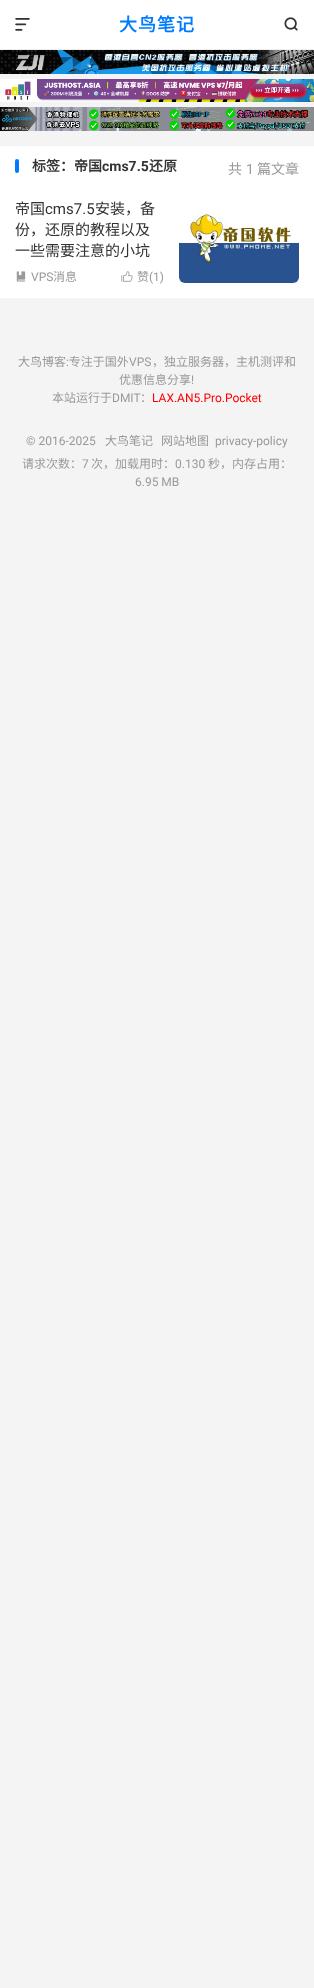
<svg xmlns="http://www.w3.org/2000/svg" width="314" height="1988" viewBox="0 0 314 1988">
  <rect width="100%" height="100%" fill="rgb(244,244,244)"/>
  <rect x="0" y="0" width="314" height="50" fill="rgb(255,255,255)"/>
  <image x="15" y="18" width="15" height="13" href="pic1.png"/>
  <text x="119" y="31" font-family="Noto Sans CJK SC" font-size="18" font-weight="bold" letter-spacing="1" fill="rgb(0,123,255)">大鸟笔记</text>
  <image x="284" y="17" width="14" height="14" href="pic2.png"/>
  <rect x="0" y="49" width="314" height="1" rx="0.5" fill="rgb(238,238,238)"/>
  <image x="0" y="50" width="314" height="24" href="pic3.png"/>
  <image x="0" y="79" width="314" height="23" href="pic4.png"/>
  <image x="0" y="107" width="314" height="24" href="pic5.png"/>
  <rect x="0" y="146" width="314" height="152" fill="rgb(255,255,255)"/>
  <rect x="15" y="159" width="4" height="14" rx="2" fill="rgb(0,123,255)"/>
  <text x="32" y="171" font-family="Noto Sans CJK SC" font-size="14" font-weight="bold" fill="rgb(51,51,51)">标签：帝国</text>
  <text x="102" y="171" font-family="Roboto" font-size="14" font-weight="bold" fill="rgb(51,51,51)">cms7.5</text>
  <text x="149" y="171" font-family="Noto Sans CJK SC" font-size="14" font-weight="bold" fill="rgb(51,51,51)">还原</text>
  <text x="228" y="174" font-family="Noto Sans CJK SC" font-size="14" fill="rgb(153,153,153)">共</text>
  <text x="246" y="174" font-family="Roboto" font-size="14" fill="rgb(153,153,153)">1</text>
  <text x="257" y="174" font-family="Noto Sans CJK SC" font-size="14" fill="rgb(153,153,153)">篇文章</text>
  <text x="15" y="214" font-family="Noto Sans CJK SC" font-size="15" fill="rgb(51,51,51)">帝国</text>
  <text x="45" y="214" font-family="Roboto" font-size="15" fill="rgb(51,51,51)">cms7.5</text>
  <g font-family="Noto Sans CJK SC" font-size="15" fill="rgb(51,51,51)">
    <text x="95" y="214">安装，备</text>
    <text>
      <tspan x="15" y="235">份，还原的教程以及</tspan>
      <tspan x="15" y="256">一些需要注意的小坑</tspan>
    </text>
  </g>
  <image x="179" y="212" width="120" height="71" href="pic6.png"/>
  <image x="16" y="271" width="10" height="11" href="pic7.png"/>
  <text x="31" y="281" font-family="Roboto" font-size="12" fill="rgb(153,153,153)">VPS</text>
  <text x="53" y="281" font-family="Noto Sans CJK SC" font-size="12" fill="rgb(153,153,153)">消息</text>
  <image x="121" y="271" width="12" height="11" href="pic8.png"/>
  <text x="137" y="281" font-family="Noto Sans CJK SC" font-size="12" fill="rgb(153,153,153)">赞</text>
  <text x="149" y="281" font-family="Roboto" font-size="12" fill="rgb(153,153,153)">(1)</text>
  <text x="18" y="366" font-family="Noto Sans CJK SC" font-size="12" fill="rgb(153,153,153)">大鸟博客 专注于国外</text>
  <text x="129" y="366" font-family="Roboto" font-size="12" fill="rgb(153,153,153)">VPS</text>
  <text x="152" y="366" font-family="Noto Sans CJK SC" font-size="12" fill="rgb(153,153,153)">，独立服务器，主机测评和</text>
  <text x="66" y="366" font-family="Roboto" font-size="12" fill="rgb(153,153,153)">:</text>
  <text x="119" y="384" font-family="Noto Sans CJK SC" font-size="12" fill="rgb(153,153,153)">优惠信息分享</text>
  <text x="191" y="384" font-family="Roboto" font-size="12" fill="rgb(153,153,153)">!</text>
  <text x="52" y="402" font-family="Noto Sans CJK SC" font-size="12" fill="rgb(153,153,153)">本站运行于</text>
  <text x="112" y="402" font-family="Roboto" font-size="12" fill="rgb(153,153,153)">DMIT</text>
  <text x="140" y="402" font-family="Noto Sans CJK SC" font-size="12" fill="rgb(153,153,153)">：</text>
  <text x="152" y="402" font-family="Roboto" font-size="12" fill="rgb(255,0,0)">LAX.AN5.Pro.Pocket</text>
  <text x="26" y="445" font-family="Roboto" font-size="12" fill="rgb(153,153,153)">© 2016-2025</text>
  <g font-family="Noto Sans CJK SC" font-size="12" fill="rgb(153,153,153)">
    <text x="105" y="445">大鸟笔记</text>
    <text x="161" y="445">网站地图</text>
  </g>
  <text x="215" y="445" font-family="Roboto" font-size="12" fill="rgb(153,153,153)">privacy-policy</text>
  <text x="22" y="468" font-family="Noto Sans CJK SC" font-size="12" fill="rgb(153,153,153)">请求次数：</text>
  <text x="82" y="468" font-family="Roboto" font-size="12" fill="rgb(153,153,153)">7</text>
  <text x="91" y="468" font-family="Noto Sans CJK SC" font-size="12" fill="rgb(153,153,153)">次，加载用时：</text>
  <text x="175" y="468" font-family="Roboto" font-size="12" fill="rgb(153,153,153)">0.130</text>
  <text x="208" y="468" font-family="Noto Sans CJK SC" font-size="12" fill="rgb(153,153,153)">秒，内存占用：</text>
  <text x="135" y="486" font-family="Roboto" font-size="12" fill="rgb(153,153,153)">6.95 MB</text>
</svg>
